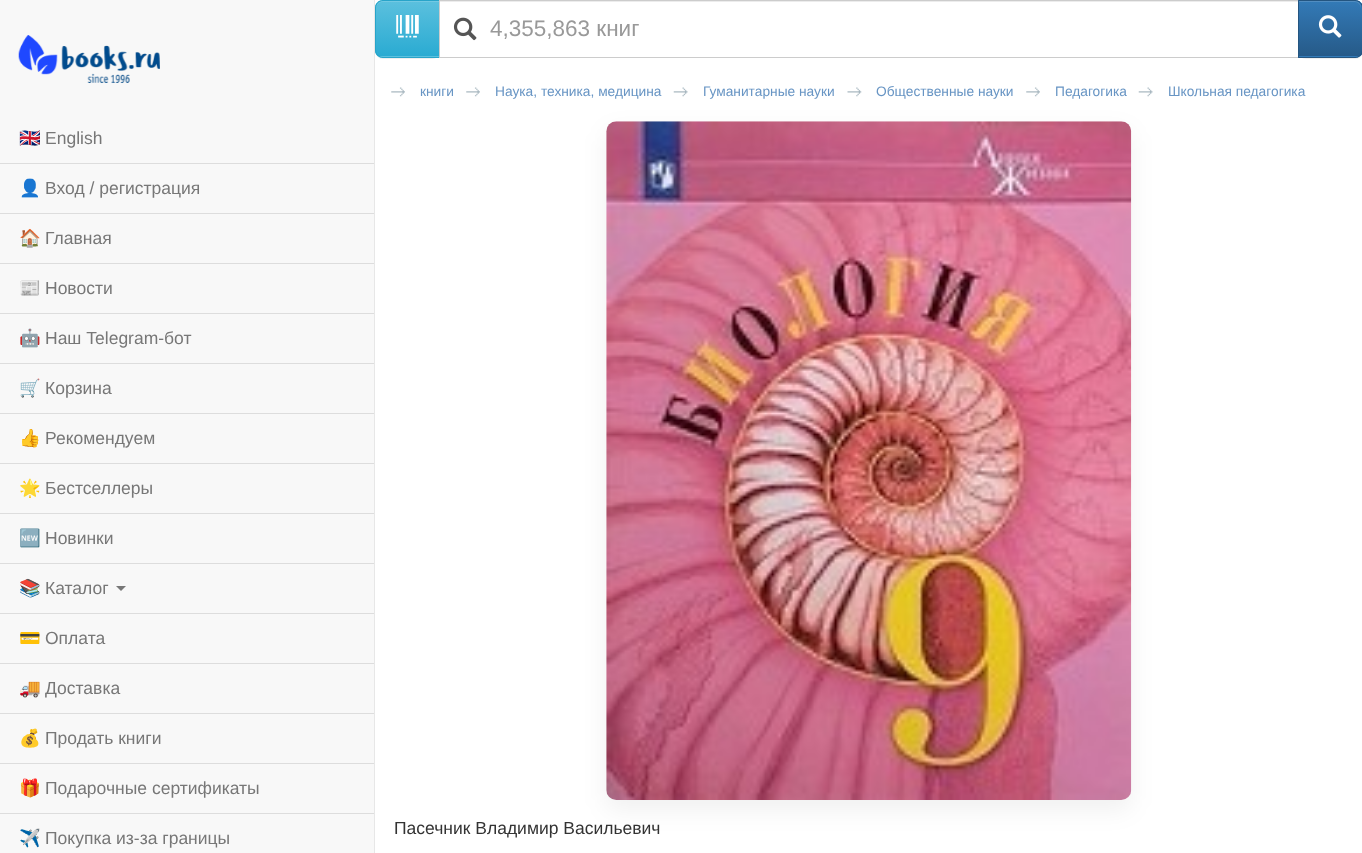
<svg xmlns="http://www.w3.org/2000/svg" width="1362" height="853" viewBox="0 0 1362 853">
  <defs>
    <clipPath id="clip1"><path d="M383 0H440V58H383C378.5 58 375 54.5 375 50V8C375 3.5 378.5 0 383 0Z"/></clipPath>
    <linearGradient id="g1" gradientUnits="userSpaceOnUse" x1="408" y1="1.2" x2="408" y2="56"><stop offset="0" stop-color="rgb(91,192,222)"/><stop offset="1" stop-color="rgb(42,171,210)"/></linearGradient>
    <clipPath id="clip2"><path d="M1298 0H1355C1359.5 0 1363 3.5 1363 8V50C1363 54.5 1359.5 58 1355 58H1298Z"/></clipPath>
    <linearGradient id="g2" gradientUnits="userSpaceOnUse" x1="1330" y1="1.2" x2="1330" y2="56"><stop offset="0" stop-color="rgb(51,122,183)"/><stop offset="1" stop-color="rgb(38,90,136)"/></linearGradient>
  </defs>
  <rect width="100%" height="100%" fill="rgb(255,255,255)"/>
  <rect x="375" y="1" width="65" height="58" rx="8" fill="rgba(0,0,0,0.07)" filter="blur(0.5px)"/>
  <path d="M383 0H440V58H383C378.5 58 375 54.5 375 50V8C375 3.5 378.5 0 383 0Z" fill="rgb(91,192,222)"/>
  <g clip-path="url(#clip1)">
    <rect x="375" y="1" width="64" height="55" fill="url(#g1)"/>
  </g>
  <path d="M382 2H439V1H382C379 1 376 4 376 7V9C376 5 379 2 382 2Z" fill="rgba(255,255,255,0.15)"/>
  <path d="M383 .5H439.5V57.5H383C379 57.5 375.5 54 375.5 50V8C375.5 4 379 .5 383 .5Z" fill="none" stroke="rgb(40,164,201)"/>
  <image x="396" y="15" width="23" height="23" href="pic1.png"/>
  <rect x="440" y="1" width="858" height="1" fill="rgb(236,236,236)"/>
  <rect x="439.5" y="0.5" width="859" height="57" fill="none" stroke="rgb(204,204,204)"/>
  <image x="453" y="17" width="24" height="24" href="pic2.png"/>
  <text x="490" y="36" font-family="Liberation Sans" font-size="22.5" fill="rgb(153,153,153)">4,355,863 книг</text>
  <rect x="1298" y="1" width="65" height="58" rx="8" fill="rgba(0,0,0,0.07)" filter="blur(0.5px)"/>
  <path d="M1298 0H1355C1359.5 0 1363 3.5 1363 8V50C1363 54.5 1359.5 58 1355 58H1298Z" fill="rgb(51,122,183)"/>
  <g clip-path="url(#clip2)">
    <rect x="1299" y="1" width="63" height="55" fill="url(#g2)"/>
  </g>
  <path d="M1299 2H1355C1358 2 1361 5 1361 9V7C1361 4 1358 1 1355 1H1299Z" fill="rgba(255,255,255,0.15)"/>
  <path d="M1298.5 .5H1355C1359 .5 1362.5 4 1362.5 8V50C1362.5 54 1359 57.5 1355 57.5H1298.5Z" fill="none" stroke="rgb(36,85,128)"/>
  <image x="1318" y="15" width="24" height="23" href="pic3.png"/>
  <rect x="0" y="0" width="374" height="853" fill="rgb(248,248,248)"/>
  <rect x="374" y="0" width="1" height="853" fill="rgb(231,231,231)"/>
  <image x="18" y="35" width="142" height="48" href="pic4.png"/>
  <rect x="0" y="163" width="374" height="1" fill="rgb(221,221,221)"/>
  <text x="19" y="144" font-family="Noto Color Emoji" font-size="17.5" fill="rgb(119,119,119)">🇬🇧</text>
  <text x="45" y="144" font-family="Liberation Sans" font-size="17.5" fill="rgb(119,119,119)">English</text>
  <rect x="0" y="213" width="374" height="1" fill="rgb(221,221,221)"/>
  <text x="19" y="194" font-family="Noto Color Emoji" font-size="17.5" fill="rgb(119,119,119)">👤</text>
  <text x="45" y="194" font-family="Liberation Sans" font-size="17.5" fill="rgb(119,119,119)">Вход / регистрация</text>
  <rect x="0" y="263" width="374" height="1" fill="rgb(221,221,221)"/>
  <text x="19" y="244" font-family="Noto Color Emoji" font-size="17.5" fill="rgb(119,119,119)">🏠</text>
  <text x="45" y="244" font-family="Liberation Sans" font-size="17.5" fill="rgb(119,119,119)">Главная</text>
  <rect x="0" y="313" width="374" height="1" fill="rgb(221,221,221)"/>
  <text x="19" y="294" font-family="Noto Color Emoji" font-size="17.5" fill="rgb(119,119,119)">📰</text>
  <text x="45" y="294" font-family="Liberation Sans" font-size="17.5" fill="rgb(119,119,119)">Новости</text>
  <rect x="0" y="363" width="374" height="1" fill="rgb(221,221,221)"/>
  <text x="19" y="344" font-family="Noto Color Emoji" font-size="17.5" fill="rgb(119,119,119)">🤖</text>
  <text x="45" y="344" font-family="Liberation Sans" font-size="17.5" fill="rgb(119,119,119)">Наш Telegram-бот</text>
  <rect x="0" y="413" width="374" height="1" fill="rgb(221,221,221)"/>
  <text x="19" y="394" font-family="Noto Color Emoji" font-size="17.5" fill="rgb(119,119,119)">🛒</text>
  <text x="45" y="394" font-family="Liberation Sans" font-size="17.5" fill="rgb(119,119,119)">Корзина</text>
  <rect x="0" y="463" width="374" height="1" fill="rgb(221,221,221)"/>
  <text x="19" y="444" font-family="Noto Color Emoji" font-size="17.5" fill="rgb(119,119,119)">👍</text>
  <text x="45" y="444" font-family="Liberation Sans" font-size="17.5" fill="rgb(119,119,119)">Рекомендуем</text>
  <rect x="0" y="513" width="374" height="1" fill="rgb(221,221,221)"/>
  <text x="19" y="494" font-family="Noto Color Emoji" font-size="17.5" fill="rgb(119,119,119)">🌟</text>
  <text x="45" y="494" font-family="Liberation Sans" font-size="17.5" fill="rgb(119,119,119)">Бестселлеры</text>
  <rect x="0" y="563" width="374" height="1" fill="rgb(221,221,221)"/>
  <text x="19" y="544" font-family="Noto Color Emoji" font-size="17.5" fill="rgb(119,119,119)">🆕</text>
  <text x="45" y="544" font-family="Liberation Sans" font-size="17.5" fill="rgb(119,119,119)">Новинки</text>
  <rect x="0" y="613" width="374" height="1" fill="rgb(221,221,221)"/>
  <text x="19" y="594" font-family="Noto Color Emoji" font-size="17.5" fill="rgb(119,119,119)">📚</text>
  <text x="45" y="594" font-family="Liberation Sans" font-size="17.5" fill="rgb(119,119,119)">Каталог</text>
  <path d="M116 586H126L121 591Z" fill="rgb(119,119,119)"/>
  <rect x="0" y="663" width="374" height="1" fill="rgb(221,221,221)"/>
  <text x="19" y="644" font-family="Noto Color Emoji" font-size="17.5" fill="rgb(119,119,119)">💳</text>
  <text x="45" y="644" font-family="Liberation Sans" font-size="17.5" fill="rgb(119,119,119)">Оплата</text>
  <rect x="0" y="713" width="374" height="1" fill="rgb(221,221,221)"/>
  <text x="19" y="694" font-family="Noto Color Emoji" font-size="17.5" fill="rgb(119,119,119)">🚚</text>
  <text x="45" y="694" font-family="Liberation Sans" font-size="17.5" fill="rgb(119,119,119)">Доставка</text>
  <rect x="0" y="763" width="374" height="1" fill="rgb(221,221,221)"/>
  <text x="19" y="744" font-family="Noto Color Emoji" font-size="17.5" fill="rgb(119,119,119)">💰</text>
  <text x="45" y="744" font-family="Liberation Sans" font-size="17.5" fill="rgb(119,119,119)">Продать книги</text>
  <rect x="0" y="813" width="374" height="1" fill="rgb(221,221,221)"/>
  <text x="19" y="794" font-family="Noto Color Emoji" font-size="17.5" fill="rgb(119,119,119)">🎁</text>
  <text x="45" y="794" font-family="Liberation Sans" font-size="17.5" fill="rgb(119,119,119)">Подарочные сертификаты</text>
  <text x="19" y="844" font-family="Noto Color Emoji" font-size="17.5" fill="rgb(119,119,119)">✈️</text>
  <text x="45" y="844" font-family="Liberation Sans" font-size="17.5" fill="rgb(119,119,119)">Покупка из-за границы</text>
  <image x="391" y="87" width="14" height="10" href="pic5.png"/>
  <text x="420" y="96" font-family="Liberation Sans" font-size="13.75" fill="rgb(104,149,196)">книги</text>
  <image x="466" y="87" width="14" height="10" href="pic5.png"/>
  <rect x="606" y="131" width="525" height="679" rx="10" fill="rgba(0,0,0,0.06)" filter="blur(12.5px)"/>
  <text x="495" y="96" font-family="Liberation Sans" font-size="13.75" fill="rgb(104,149,196)">Наука, техника, медицина</text>
  <image x="673" y="87" width="15" height="10" href="pic6.png"/>
  <text x="703" y="96" font-family="Liberation Sans" font-size="13.75" fill="rgb(104,149,196)">Гуманитарные науки</text>
  <image x="847" y="87" width="15" height="10" href="pic7.png"/>
  <text x="876" y="96" font-family="Liberation Sans" font-size="13.75" fill="rgb(104,149,196)">Общественные науки</text>
  <image x="1026" y="87" width="14" height="10" href="pic5.png"/>
  <text x="1055" y="96" font-family="Liberation Sans" font-size="13.75" fill="rgb(104,149,196)">Педагогика</text>
  <image x="1138" y="87" width="15" height="10" href="pic6.png"/>
  <text x="1168" y="96" font-family="Liberation Sans" font-size="13.75" fill="rgb(104,149,196)">Школьная педагогика</text>
  <text x="394" y="834" font-family="Liberation Sans" font-size="17.5" fill="rgb(51,51,51)">Пасечник Владимир Васильевич</text>
  <image x="606" y="121" width="526" height="679" href="pic8.png"/>
</svg>
